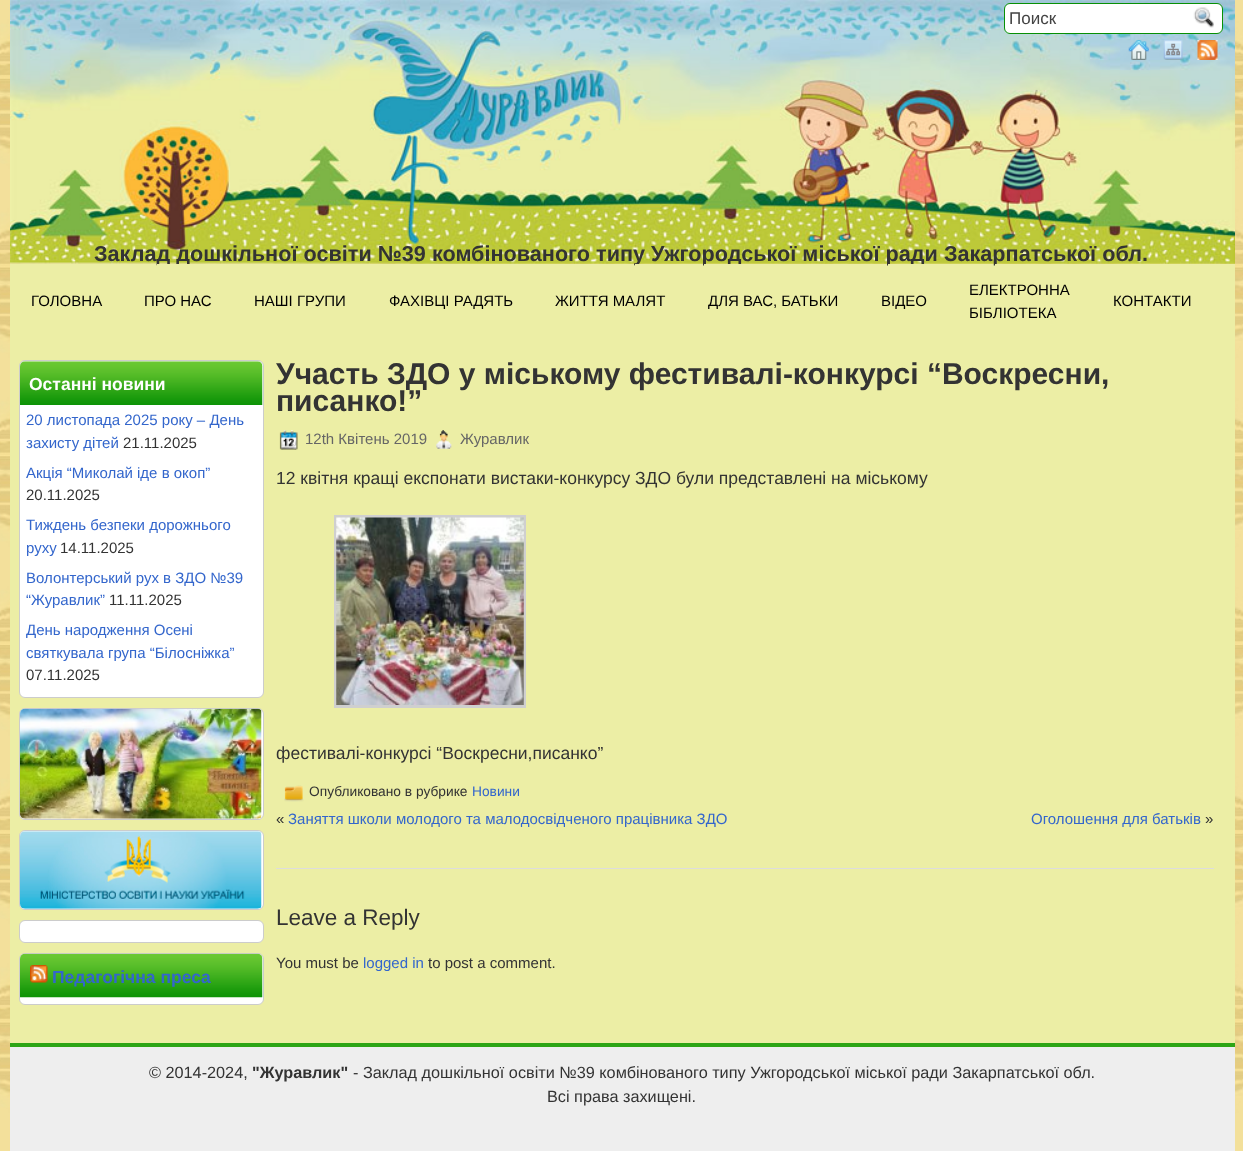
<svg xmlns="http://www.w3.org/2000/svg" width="1243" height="1151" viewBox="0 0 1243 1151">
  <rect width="100%" height="100%" fill="rgb(255,255,255)"/>
  <image x="0" y="0" width="1243" height="1151" href="pic1.png"/>
  <image x="10" y="0" width="1225" height="264" href="pic2.png"/>
  <rect x="1004.5" y="3.5" width="218" height="30" rx="5.5" fill="rgb(255,255,255)" stroke="rgb(7,144,5)"/>
  <text x="1009" y="24" font-family="Liberation Sans" font-size="17" fill="rgb(68,68,68)">Поиск</text>
  <image x="1193" y="7" width="21" height="21" href="pic3.png"/>
  <image x="1128" y="40" width="21" height="20" href="pic4.png"/>
  <image x="1163" y="40" width="20" height="20" href="pic5.png"/>
  <image x="1197" y="40" width="21" height="20" href="pic6.png"/>
  <rect x="10" y="264" width="1225" height="779" fill="rgb(236,238,165)"/>
  <text x="94" y="261" font-family="Liberation Sans" font-size="21.65" font-weight="bold" fill="rgb(51,51,51)">Заклад дошкільної освіти №39 комбінованого типу Ужгородської міської ради Закарпатської обл.</text>
  <text x="31" y="306" font-family="Liberation Sans" font-size="15" fill="rgb(0,0,0)">ГОЛОВНА</text>
  <rect x="157" y="264" width="34" height="2" fill="rgb(236,238,165)"/>
  <g font-family="Liberation Sans" font-size="15" fill="rgb(0,0,0)">
    <text x="144" y="306">ПРО НАС</text>
    <text x="254" y="306">НАШІ ГРУПИ</text>
    <text x="389" y="306">ФАХІВЦІ РАДЯТЬ</text>
  </g>
  <rect x="635" y="264" width="5" height="2" fill="rgb(236,238,165)"/>
  <text x="555" y="306" font-family="Liberation Sans" font-size="15" fill="rgb(0,0,0)">ЖИТТЯ МАЛЯТ</text>
  <rect x="704" y="264" width="39" height="2" fill="rgb(236,238,165)"/>
  <text x="708" y="306" font-family="Liberation Sans" font-size="15" fill="rgb(0,0,0)">ДЛЯ ВАС, БАТЬКИ</text>
  <rect x="888" y="264" width="38" height="2" fill="rgb(236,238,165)"/>
  <text x="881" y="306" font-family="Liberation Sans" font-size="15" fill="rgb(0,0,0)">ВІДЕО</text>
  <rect x="995" y="264" width="4" height="2" fill="rgb(236,238,165)"/>
  <g font-family="Liberation Sans" font-size="15" fill="rgb(0,0,0)">
    <text>
      <tspan x="969" y="295">ЕЛЕКТРОННА</tspan>
      <tspan x="969" y="318">БІБЛІОТЕКА</tspan>
    </text>
    <text x="1113" y="306">КОНТАКТИ</text>
  </g>
  <rect x="19.5" y="360.5" width="244" height="337" rx="5.5" fill="rgb(255,255,255)" stroke="rgb(204,204,204)"/>
  <image x="20" y="361" width="243" height="44" href="pic7.png"/>
  <text x="29" y="390" font-family="Liberation Sans" font-size="17.5" font-weight="bold" fill="rgb(255,255,255)">Останні новини</text>
  <g font-family="Liberation Sans" font-size="15" fill="rgb(51,102,204)">
    <text>
      <tspan x="26" y="425">20 листопада 2025 року – День</tspan>
      <tspan x="26" y="448">захисту дітей</tspan>
    </text>
  </g>
  <text x="123" y="448" font-family="Liberation Sans" font-size="15" fill="rgb(51,51,51)">21.11.2025</text>
  <text x="26" y="478" font-family="Liberation Sans" font-size="15" fill="rgb(51,102,204)">Акція “Миколай іде в окоп”</text>
  <text x="26" y="500" font-family="Liberation Sans" font-size="15" fill="rgb(51,51,51)">20.11.2025</text>
  <g font-family="Liberation Sans" font-size="15" fill="rgb(51,102,204)">
    <text>
      <tspan x="26" y="530">Тиждень безпеки дорожнього</tspan>
      <tspan x="26" y="553">руху</tspan>
    </text>
  </g>
  <text x="60" y="553" font-family="Liberation Sans" font-size="15" fill="rgb(51,51,51)">14.11.2025</text>
  <g font-family="Liberation Sans" font-size="15" fill="rgb(51,102,204)">
    <text>
      <tspan x="26" y="583">Волонтерський рух в ЗДО №39</tspan>
      <tspan x="26" y="605">“Журавлик”</tspan>
    </text>
  </g>
  <text x="109" y="605" font-family="Liberation Sans" font-size="15" fill="rgb(51,51,51)">11.11.2025</text>
  <g font-family="Liberation Sans" font-size="15" fill="rgb(51,102,204)">
    <text>
      <tspan x="26" y="635">День народження Осені</tspan>
      <tspan x="26" y="658">святкувала група “Білосніжка”</tspan>
    </text>
  </g>
  <text x="26" y="680" font-family="Liberation Sans" font-size="15" fill="rgb(51,51,51)">07.11.2025</text>
  <rect x="19.5" y="708.5" width="244" height="111" rx="5.5" fill="rgb(255,255,255)" stroke="rgb(204,204,204)"/>
  <image x="20" y="708" width="242" height="111" href="pic8.png"/>
  <rect x="19.5" y="830.5" width="244" height="79" rx="5.5" fill="rgb(255,255,255)" stroke="rgb(204,204,204)"/>
  <image x="20" y="831" width="242" height="78" href="pic9.png"/>
  <rect x="19.5" y="920.5" width="244" height="22" rx="5.5" fill="rgb(255,255,255)" stroke="rgb(204,204,204)"/>
  <rect x="19.5" y="953.5" width="244" height="51" rx="5.5" fill="rgb(255,255,255)" stroke="rgb(204,204,204)"/>
  <image x="20" y="953" width="243" height="45" href="pic10.png"/>
  <image x="30" y="965" width="18" height="18" href="pic11.png"/>
  <text x="52" y="983" font-family="Liberation Sans" font-size="17.5" font-weight="bold" fill="rgb(51,102,204)">Педагогічна преса</text>
  <rect x="276" y="868" width="938" height="1" fill="rgb(221,221,221)"/>
  <g font-family="Liberation Sans" font-size="30" font-weight="bold" fill="rgb(51,51,51)">
    <text>
      <tspan x="276" y="384">Участь ЗДО у міському фестивалі-конкурсі “Воскресни,</tspan>
      <tspan x="276" y="411">писанко!”</tspan>
    </text>
  </g>
  <image x="279" y="430" width="19" height="20" href="pic12.png"/>
  <text x="305" y="444" font-family="Liberation Sans" font-size="15" fill="rgb(102,102,102)">12th Квітень 2019</text>
  <image x="436" y="430" width="16" height="19" href="pic13.png"/>
  <text x="460" y="444" font-family="Liberation Sans" font-size="15" fill="rgb(102,102,102)">Журавлик</text>
  <text x="276" y="484" font-family="Liberation Sans" font-size="17.5" fill="rgb(51,51,51)">12 квітня кращі експонати вистаки-конкурсу ЗДО були представлені на міському</text>
  <rect x="335.5" y="516.5" width="189" height="190" fill="none" stroke="rgb(207,207,207)" stroke-width="3"/>
  <image x="336" y="517" width="188" height="188" href="pic14.png"/>
  <text x="276" y="759" font-family="Liberation Sans" font-size="17.5" fill="rgb(51,51,51)">фестивалі-конкурсі “Воскресни,писанко”</text>
  <image x="284" y="785" width="20" height="17" href="pic15.png"/>
  <text x="309" y="796" font-family="Liberation Sans" font-size="13.75" fill="rgb(51,51,51)">Опубликовано в рубрике</text>
  <text x="472" y="796" font-family="Liberation Sans" font-size="13.75" fill="rgb(51,102,204)">Новини</text>
  <text x="276" y="824" font-family="Liberation Sans" font-size="15" fill="rgb(51,51,51)">«</text>
  <g font-family="Liberation Sans" font-size="15" fill="rgb(51,102,204)">
    <text x="288" y="824">Заняття школи молодого та малодосвідченого працівника ЗДО</text>
    <text x="1031" y="824">Оголошення для батьків</text>
  </g>
  <text x="1205" y="824" font-family="Liberation Sans" font-size="15" fill="rgb(51,51,51)">»</text>
  <text x="276" y="925" font-family="Liberation Sans" font-size="22.5" fill="rgb(51,51,51)">Leave a Reply</text>
  <text x="276" y="968" font-family="Liberation Sans" font-size="15" fill="rgb(51,51,51)">You must be</text>
  <text x="363" y="968" font-family="Liberation Sans" font-size="15" fill="rgb(51,102,204)">logged in</text>
  <text x="428" y="968" font-family="Liberation Sans" font-size="15" fill="rgb(51,51,51)">to post a comment.</text>
  <rect x="10" y="1047" width="1225" height="104" fill="rgb(238,238,238)"/>
  <rect x="10" y="1043" width="1225" height="4" fill="rgb(45,165,21)"/>
  <text x="149" y="1078" font-family="Liberation Sans" font-size="16.25" fill="rgb(51,51,51)">© 2014-2024,</text>
  <text x="252" y="1078" font-family="Liberation Sans" font-size="16.25" font-weight="bold" fill="rgb(51,51,51)">"Журавлик"</text>
  <g font-family="Liberation Sans" font-size="16.25" fill="rgb(51,51,51)">
    <text x="353" y="1078">- Заклад дошкільної освіти №39 комбінованого типу Ужгородської міської ради Закарпатської обл.</text>
    <text x="547" y="1102">Всі права захищені.</text>
  </g>
</svg>
